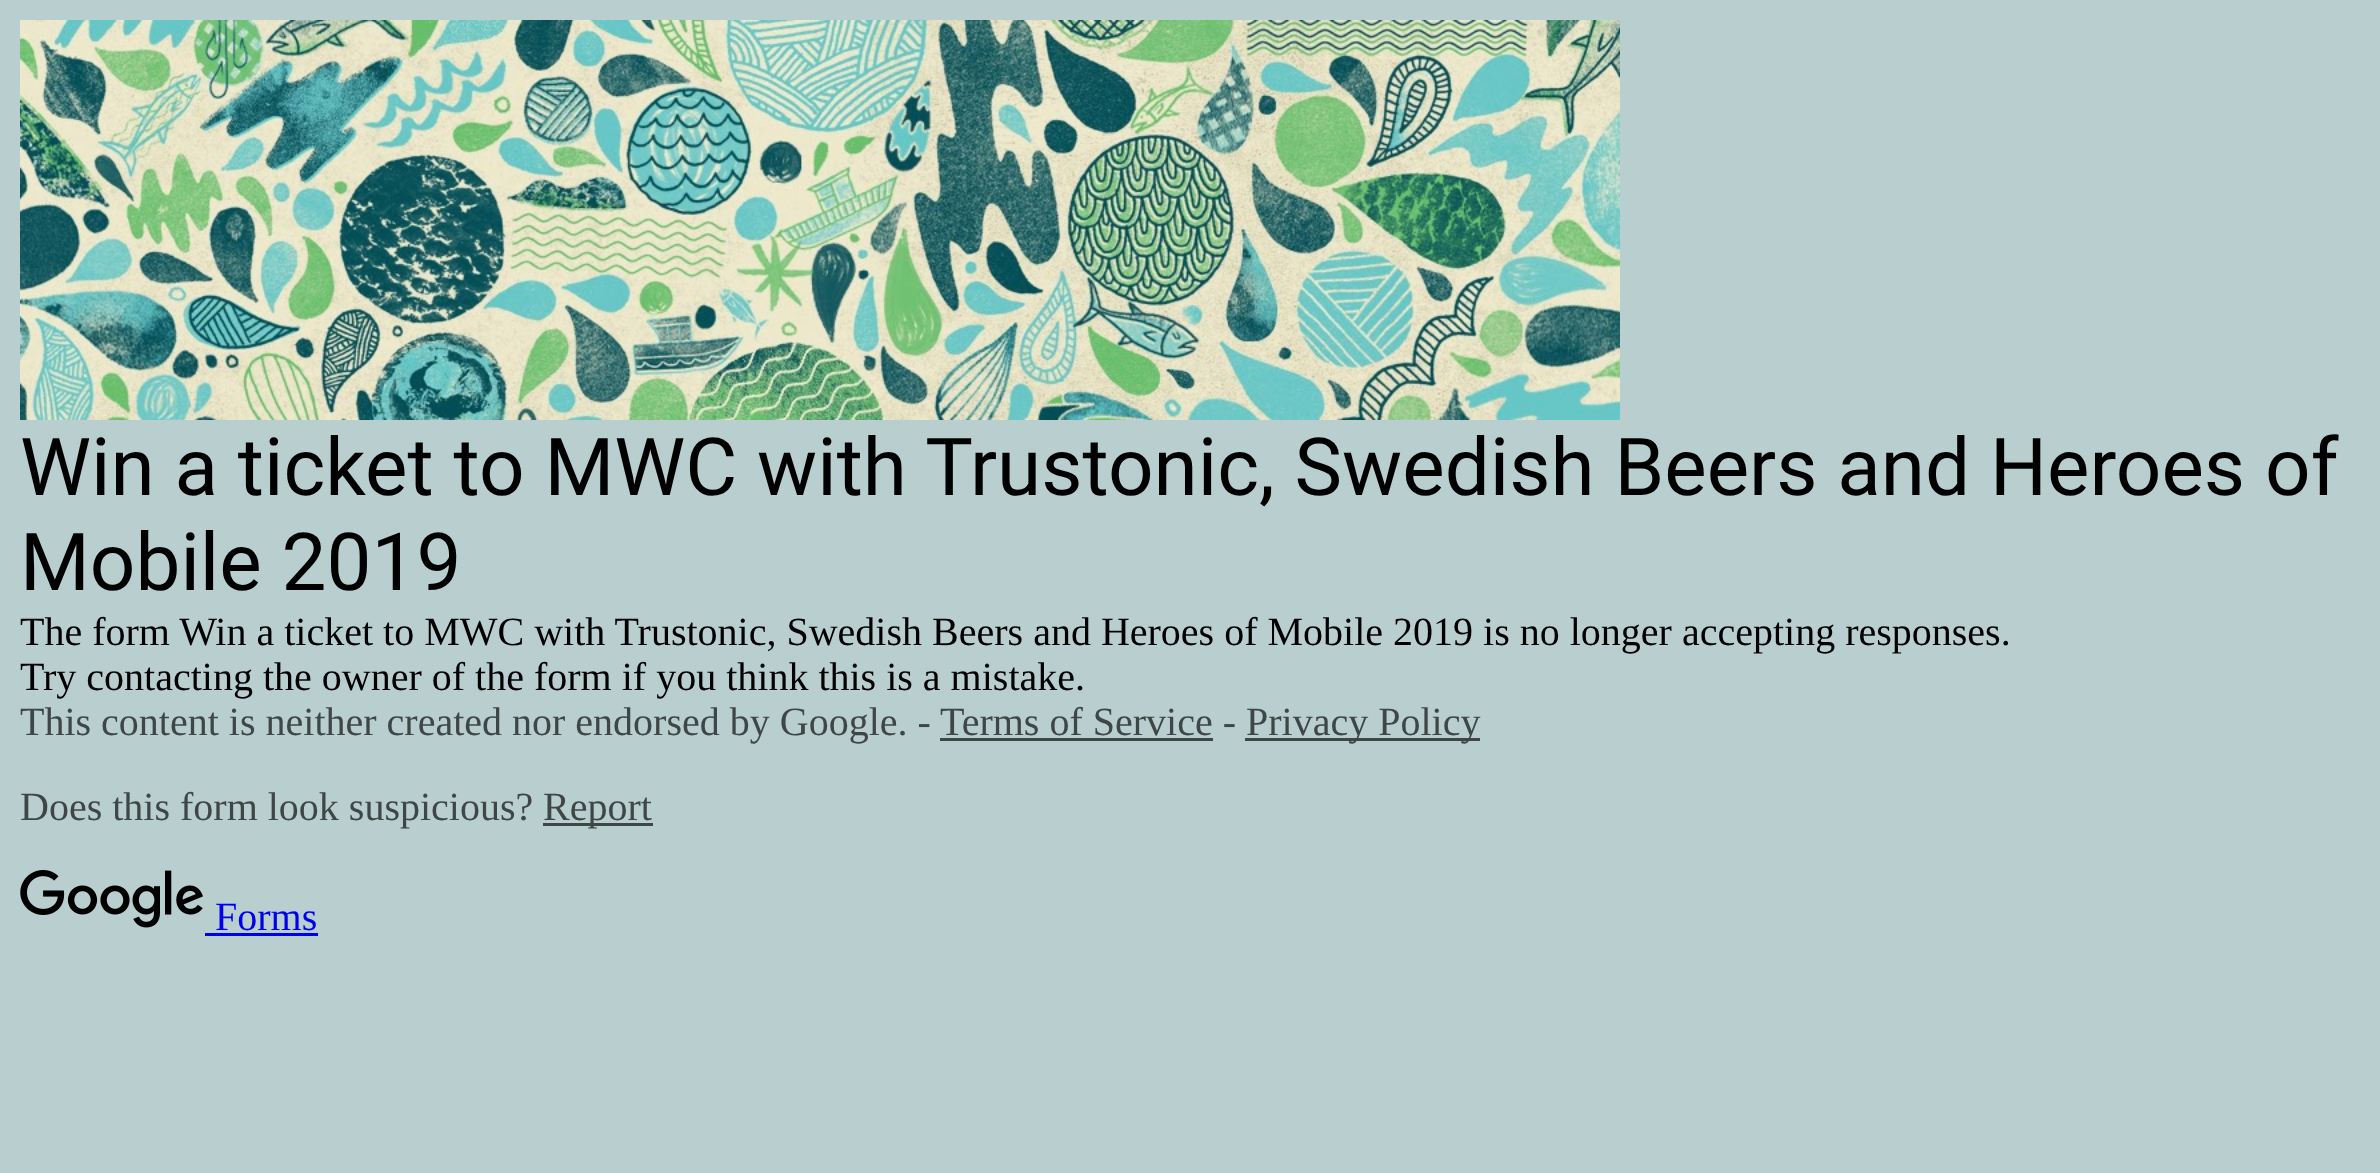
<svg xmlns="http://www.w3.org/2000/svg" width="2380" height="1173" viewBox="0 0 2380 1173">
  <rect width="100%" height="100%" fill="rgb(185,206,207)"/>
  <image x="20" y="20" width="1600" height="400" href="pic1.png"/>
  <g font-family="Roboto" font-size="80" fill="rgb(0,0,0)">
    <text>
      <tspan x="20" y="495">Win a ticket to MWC with Trustonic, Swedish Beers and Heroes of</tspan>
      <tspan x="20" y="590">Mobile 2019</tspan>
    </text>
  </g>
  <g font-family="Liberation Serif" font-size="40" fill="rgb(0,0,0)">
    <text>
      <tspan x="20" y="645">The form Win a ticket to MWC with Trustonic, Swedish Beers and Heroes of Mobile 2019 is no longer accepting responses.</tspan>
      <tspan x="20" y="690">Try contacting the owner of the form if you think this is a mistake.</tspan>
    </text>
  </g>
  <g font-family="Liberation Serif" font-size="40" fill="rgb(63,70,70)">
    <text x="20" y="735">This content is neither created nor endorsed by Google. -</text>
    <text x="940" y="735">Terms of Service -</text>
  </g>
  <rect x="940" y="738" width="273" height="3" fill="rgb(63,70,70)"/>
  <rect x="1245" y="738" width="235" height="3" fill="rgb(63,70,70)"/>
  <g font-family="Liberation Serif" font-size="40" fill="rgb(63,70,70)">
    <text x="1246" y="735">Privacy Policy</text>
    <text x="20" y="820">Does this form look suspicious?</text>
  </g>
  <rect x="543" y="823" width="110" height="3" fill="rgb(63,70,70)"/>
  <text x="543" y="820" font-family="Liberation Serif" font-size="40" fill="rgb(63,70,70)">Report</text>
  <image x="20" y="870" width="183" height="58" href="pic2.png"/>
  <text x="215" y="930" font-family="Liberation Serif" font-size="40" fill="rgb(0,0,238)">Forms</text>
  <rect x="205" y="933" width="113" height="3" fill="rgb(0,0,238)"/>
</svg>
